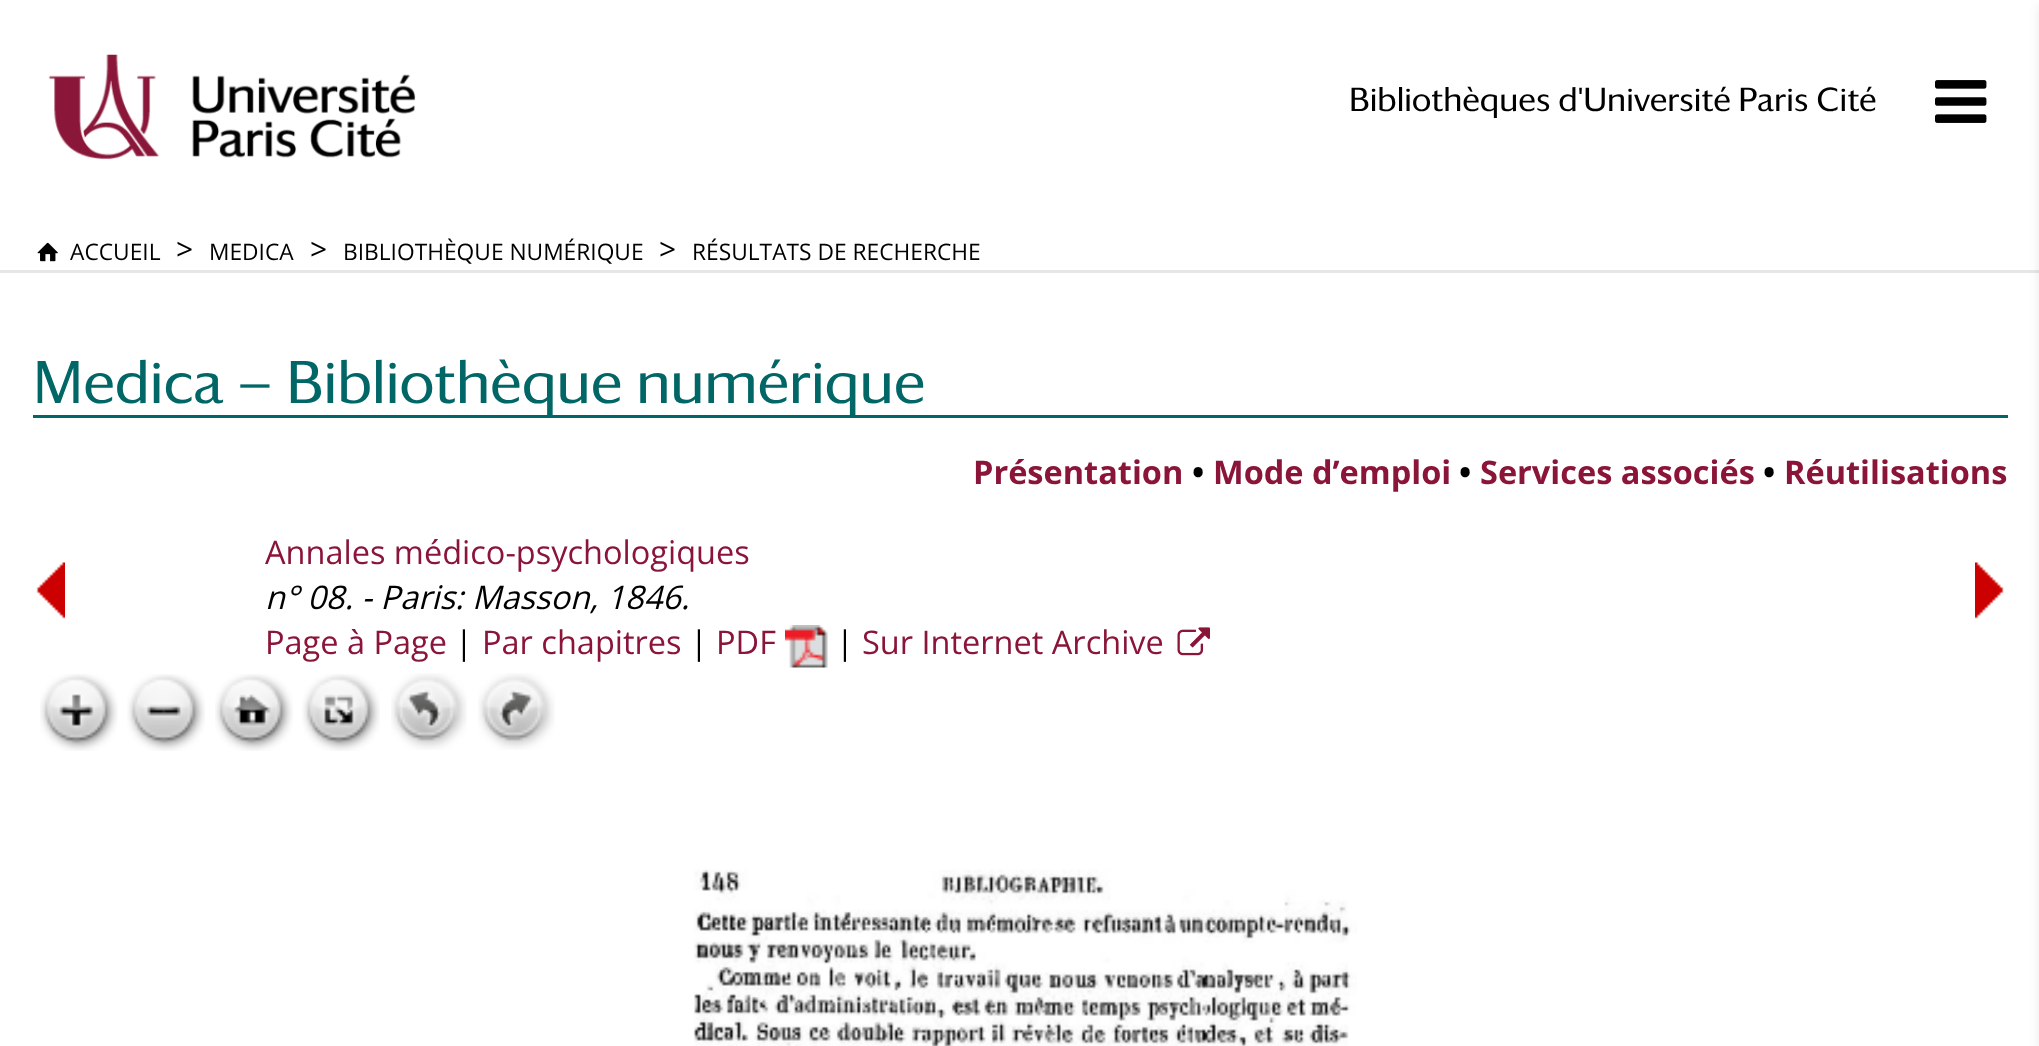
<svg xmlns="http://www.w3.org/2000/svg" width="2039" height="1046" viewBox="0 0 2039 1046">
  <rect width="100%" height="100%" fill="rgb(255,255,255)"/>
  <rect x="0" y="270" width="2039" height="3" fill="rgb(230,230,230)"/>
  <image x="48" y="54" width="368" height="106" href="pic1.png"/>
  <text x="1349" y="111" font-family="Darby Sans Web" font-size="32.5" fill="rgb(0,0,0)">Bibliothèques d'Université Paris Cité</text>
  <image x="1935" y="80" width="52" height="43" href="pic2.png"/>
  <rect x="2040" y="5" width="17" height="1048" fill="rgba(0,0,0,0.1)" filter="blur(6px)"/>
  <image x="37" y="242" width="21" height="20" href="pic3.png"/>
  <text x="70" y="260" font-family="Open Sans" font-size="22.75" fill="rgb(0,0,0)">ACCUEIL</text>
  <text x="176" y="260" font-family="Open Sans" font-size="30" fill="rgb(0,0,0)">&gt;</text>
  <text x="209" y="260" font-family="Open Sans" font-size="22.75" fill="rgb(0,0,0)">MEDICA</text>
  <text x="310" y="260" font-family="Open Sans" font-size="30" fill="rgb(0,0,0)">&gt;</text>
  <text x="343" y="260" font-family="Open Sans" font-size="22.75" fill="rgb(0,0,0)">BIBLIOTHÈQUE NUMÉRIQUE</text>
  <text x="659" y="260" font-family="Open Sans" font-size="30" fill="rgb(0,0,0)">&gt;</text>
  <text x="692" y="260" font-family="Open Sans" font-size="22.75" fill="rgb(0,0,0)">RÉSULTATS DE RECHERCHE</text>
  <rect x="33" y="415" width="1975" height="3" fill="rgb(0,102,102)"/>
  <text x="33" y="403" font-family="Darby Sans Web" font-size="58.5" fill="rgb(0,102,102)">Medica — Bibliothèque numérique</text>
  <text x="973" y="484" font-family="Open Sans" font-size="32.5" font-weight="bold" fill="rgb(138,21,56)">Présentation</text>
  <text x="1192" y="484" font-family="Open Sans" font-size="32.5" font-weight="bold" fill="rgb(0,0,0)">•</text>
  <text x="1213" y="484" font-family="Open Sans" font-size="32.5" font-weight="bold" fill="rgb(138,21,56)">Mode d’emploi</text>
  <text x="1459" y="484" font-family="Open Sans" font-size="32.5" font-weight="bold" fill="rgb(0,0,0)">•</text>
  <text x="1480" y="484" font-family="Open Sans" font-size="32.5" font-weight="bold" fill="rgb(138,21,56)">Services associés</text>
  <text x="1763" y="484" font-family="Open Sans" font-size="32.5" font-weight="bold" fill="rgb(0,0,0)">•</text>
  <text x="1784" y="484" font-family="Open Sans" font-size="32.5" font-weight="bold" fill="rgb(138,21,56)">Réutilisations</text>
  <image x="36" y="562" width="29" height="57" href="pic4.png"/>
  <text x="265" y="564" font-family="Open Sans" font-size="32.5" fill="rgb(138,21,56)">Annales médico-psychologiques</text>
  <text x="265" y="609" font-family="Open Sans" font-size="32.5" font-style="italic" fill="rgb(0,0,0)">n° 08. - Paris: Masson, 1846.</text>
  <text x="265" y="654" font-family="Open Sans" font-size="32.5" fill="rgb(138,21,56)">Page à Page</text>
  <text x="455" y="654" font-family="Open Sans" font-size="32.5" fill="rgb(0,0,0)">|</text>
  <text x="482" y="654" font-family="Open Sans" font-size="32.5" fill="rgb(138,21,56)">Par chapitres</text>
  <text x="690" y="654" font-family="Open Sans" font-size="32.5" fill="rgb(0,0,0)">|</text>
  <text x="716" y="654" font-family="Open Sans" font-size="32.5" fill="rgb(138,21,56)">PDF</text>
  <image x="785" y="625" width="43" height="43" href="pic5.png"/>
  <text x="836" y="654" font-family="Open Sans" font-size="32.5" fill="rgb(0,0,0)">|</text>
  <text x="862" y="654" font-family="Open Sans" font-size="32.5" fill="rgb(138,21,56)">Sur Internet Archive</text>
  <image x="1177" y="627" width="33" height="29" href="pic6.png"/>
  <image x="1975" y="562" width="29" height="57" href="pic7.png"/>
  <image x="40" y="674" width="78" height="77" href="pic8.png"/>
  <image x="127" y="674" width="78" height="77" href="pic9.png"/>
  <image x="215" y="674" width="78" height="77" href="pic10.png"/>
  <image x="302" y="674" width="78" height="77" href="pic11.png"/>
  <image x="391" y="673" width="76" height="77" href="pic12.png"/>
  <image x="478" y="673" width="77" height="77" href="pic13.png"/>
  <image x="693" y="869" width="664" height="177" href="pic14.png"/>
</svg>
